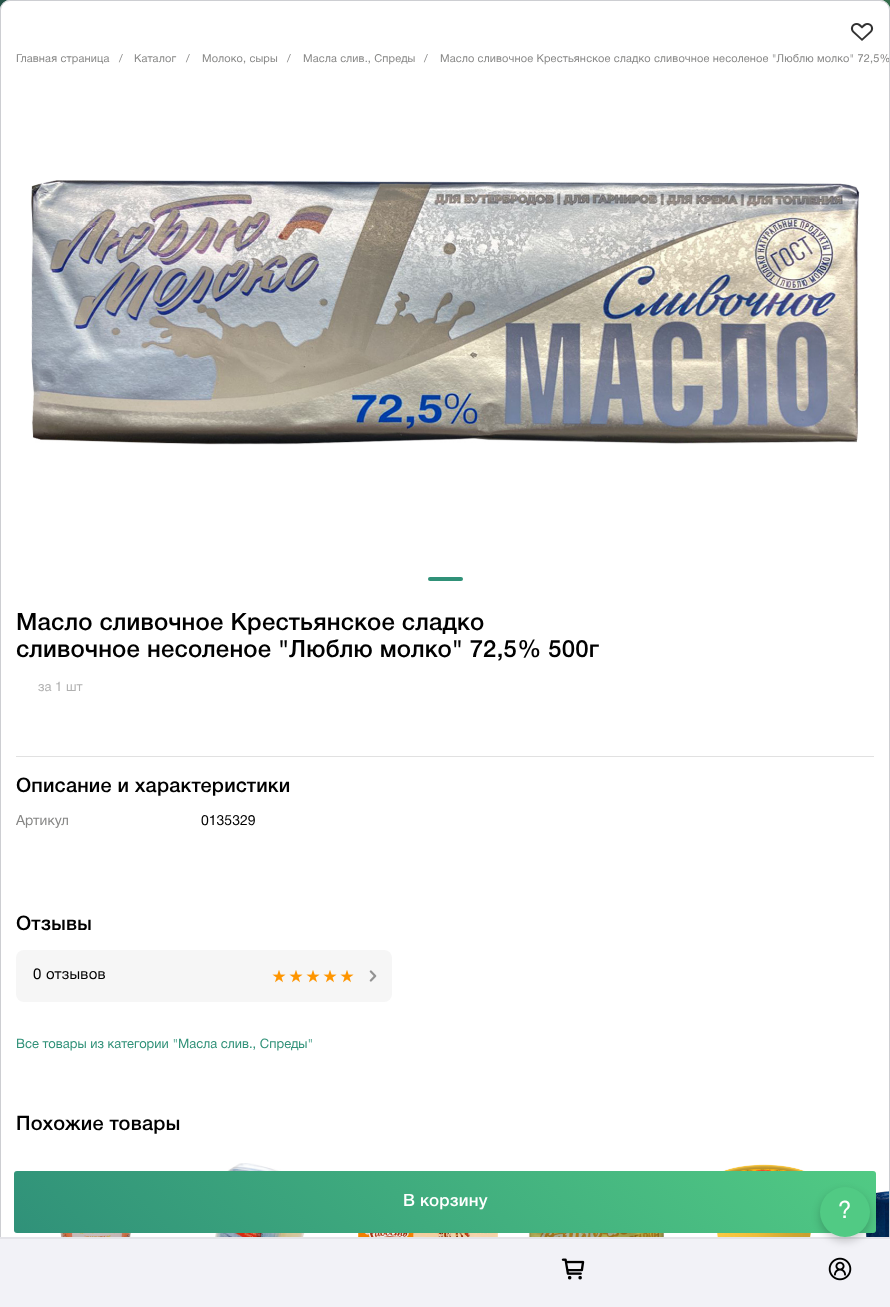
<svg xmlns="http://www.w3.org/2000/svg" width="890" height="1307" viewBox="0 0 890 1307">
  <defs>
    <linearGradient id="g1" gradientUnits="userSpaceOnUse" x1="0" y1="26" x2="890" y2="26"><stop offset="0" stop-color="rgb(36,83,71)"/><stop offset="1" stop-color="rgb(52,110,76)"/></linearGradient>
    <clipPath id="clip1"><rect x="1" y="1" width="888" height="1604" rx="9"/></clipPath>
    <linearGradient id="g2" gradientUnits="userSpaceOnUse" x1="214" y1="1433" x2="676" y2="971"><stop offset="0" stop-color="rgb(48,145,121)"/><stop offset="1" stop-color="rgb(81,202,132)"/></linearGradient>
  </defs>
  <rect width="100%" height="100%" fill="rgb(255,255,255)"/>
  <rect x="0" y="0" width="890" height="10" fill="url(#g1)"/>
  <rect x="0" y="-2" width="890" height="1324" rx="10" fill="rgba(0,0,0,0.05)" filter="blur(1.5px)"/>
  <path d="M10 0H880C885.5 0 890 4.5 890 10V1307H0V10C0 4.5 4.5 0 10 0Z" fill="rgb(255,255,255)"/>
  <rect x="0.5" y="0.5" width="889" height="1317" rx="9.5" fill="none" stroke="rgb(205,206,210)"/>
  <g font-family="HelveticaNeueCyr" font-size="11" letter-spacing="0.15" fill="rgb(135,135,134)">
    <text x="16" y="62">Главная страница</text>
    <text x="119" y="62">/</text>
    <text x="134" y="62">Каталог</text>
    <text x="186" y="62">/</text>
    <text x="202" y="62">Молоко, сыры</text>
    <text x="287" y="62">/</text>
    <text x="303" y="62">Масла слив., Спреды</text>
    <text x="424" y="62">/</text>
  </g>
  <g clip-path="url(#clip1)">
    <text x="440" y="62" font-family="HelveticaNeueCyr" font-size="11" letter-spacing="0.15" fill="rgb(135,135,134)">Масло сливочное Крестьянское сладко сливочное несоленое "Люблю молко" 72,5%</text>
  </g>
  <image x="31" y="180" width="829" height="265" href="pic1.png"/>
  <rect x="428" y="577" width="35" height="4" rx="2" fill="rgb(48,145,120)"/>
  <g font-family="HelveticaNeueCyr" font-size="24" font-weight="500" letter-spacing="0.2" fill="rgb(0,0,0)">
    <text>
      <tspan x="16" y="630">Масло сливочное Крестьянское сладко</tspan>
      <tspan x="16" y="657">сливочное несоленое "Люблю молко" 72,5% 500г</tspan>
    </text>
  </g>
  <text x="38" y="691" font-family="HelveticaNeueCyr" font-size="13" fill="rgb(176,176,176)">за 1 шт</text>
  <rect x="16" y="756" width="858" height="1" fill="rgb(225,225,225)"/>
  <text x="16" y="792" font-family="HelveticaNeueCyr" font-size="20" font-weight="500" letter-spacing="0.15" fill="rgb(0,0,0)">Описание и характеристики</text>
  <text x="16" y="825" font-family="HelveticaNeueCyr" font-size="14" fill="rgb(135,135,134)">Артикул</text>
  <text x="201" y="825" font-family="HelveticaNeueCyr" font-size="14" fill="rgb(0,0,0)">0135329</text>
  <image x="850" y="23" width="24" height="18" href="pic2.png"/>
  <image x="212" y="1163" width="99" height="74" href="pic6.png"/>
  <image x="704" y="1164" width="120" height="73" href="pic9.png"/>
  <image x="865" y="1191" width="24" height="46" href="pic10.png"/>
  <rect x="14" y="1171" width="862" height="62" rx="3" fill="url(#g2)"/>
  <text x="403" y="1206" font-family="HelveticaNeueCyr" font-size="17" font-weight="500" letter-spacing="0.15" fill="rgb(255,255,255)">В корзину</text>
  <text x="16" y="930" font-family="HelveticaNeueCyr" font-size="20" font-weight="500" letter-spacing="0.15" fill="rgb(0,0,0)">Отзывы</text>
  <rect x="16" y="950" width="376" height="52" rx="8" fill="rgb(246,246,246)"/>
  <text x="33" y="979" font-family="HelveticaNeueCyr" font-size="15" letter-spacing="0.25" fill="rgb(0,0,0)">0 отзывов</text>
  <image x="272" y="970" width="14" height="13" href="pic3.png"/>
  <image x="289" y="970" width="14" height="13" href="pic3.png"/>
  <image x="306" y="970" width="14" height="13" href="pic3.png"/>
  <image x="323" y="970" width="14" height="13" href="pic3.png"/>
  <image x="340" y="970" width="14" height="13" href="pic3.png"/>
  <image x="369" y="970" width="8" height="12" href="pic4.png"/>
  <text x="16" y="1048" font-family="HelveticaNeueCyr" font-size="13" fill="rgb(48,145,120)">Все товары из категории "Масла слив., Спреды"</text>
  <text x="16" y="1130" font-family="HelveticaNeueCyr" font-size="20" font-weight="500" letter-spacing="0.2" fill="rgb(0,0,0)">Похожие товары</text>
  <image x="51" y="1233" width="89" height="4" href="pic5.png"/>
  <image x="358" y="1233" width="140" height="4" href="pic7.png"/>
  <image x="527" y="1233" width="138" height="4" href="pic8.png"/>
  <rect x="0" y="1239" width="890" height="68" fill="rgb(242,242,247)"/>
  <rect x="0" y="1237" width="890" height="2" fill="rgb(228,228,233)"/>
  <rect x="820" y="1191" width="50" height="50" rx="25" fill="rgba(0,0,0,0.2)" filter="blur(4px)"/>
  <circle cx="845" cy="1212" r="25" fill="rgb(81,202,132)"/>
  <text x="838" y="1218" font-family="HelveticaNeueCyr" font-size="24" fill="rgb(255,255,255)">?</text>
  <image x="561" y="1258" width="24" height="22" href="pic11.png"/>
  <image x="828" y="1257" width="24" height="24" href="pic12.png"/>
</svg>
